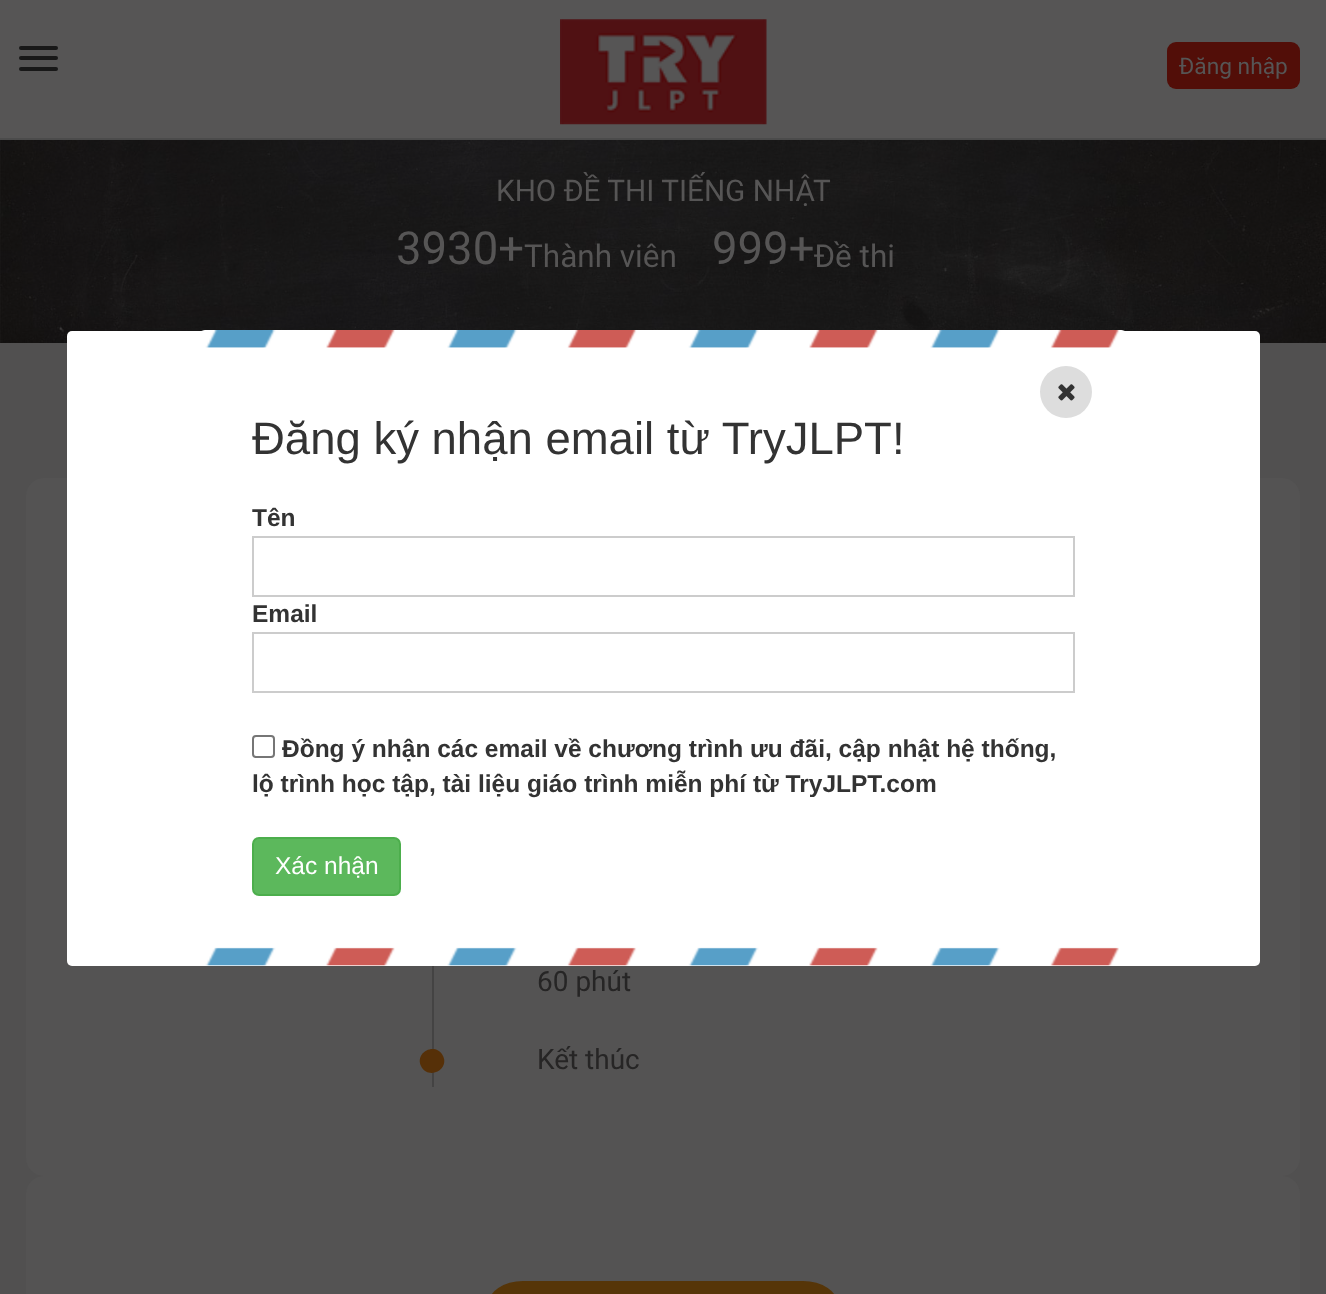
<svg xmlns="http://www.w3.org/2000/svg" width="1326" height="1294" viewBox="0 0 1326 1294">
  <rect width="100%" height="100%" fill="rgb(81,80,80)"/>
  <rect x="0" y="0" width="1326" height="138" fill="rgb(86,85,85)"/>
  <rect x="0" y="138" width="1326" height="2" fill="rgb(75,75,75)"/>
  <rect x="19" y="46" width="39" height="4" rx="2" fill="rgb(24,24,24)"/>
  <rect x="19" y="56" width="39" height="4" rx="2" fill="rgb(24,24,24)"/>
  <rect x="19" y="67" width="39" height="4" rx="2" fill="rgb(24,24,24)"/>
  <image x="560" y="19" width="207" height="106" href="pic1.png"/>
  <rect x="1167" y="42" width="133" height="47" rx="9" fill="rgb(82,14,8)"/>
  <text x="1179" y="74" font-family="Roboto" font-size="22.75" fill="rgb(86,85,85)">Đăng nhập</text>
  <image x="0" y="140" width="1326" height="203" href="pic5.png"/>
  <rect x="26" y="478" width="1274" height="698" rx="18" fill="rgb(84,83,83)"/>
  <rect x="67" y="331" width="1193" height="635" rx="5" fill="rgb(255,255,255)"/>
  <image x="201" y="330" width="924" height="18" href="pic2.png"/>
  <circle cx="1066" cy="392" r="26" fill="rgb(221,221,221)"/>
  <image x="1058" y="384" width="17" height="17" href="pic3.png"/>
  <text x="252" y="454" font-family="Liberation Sans" font-size="45.5" fill="rgb(51,51,51)">Đăng ký nhận email từ TryJLPT!</text>
  <text x="252" y="526" font-family="Liberation Sans" font-size="24.5" font-weight="bold" fill="rgb(51,51,51)">Tên</text>
  <rect x="253" y="537" width="821" height="59" fill="none" stroke="rgb(204,204,204)" stroke-width="2"/>
  <text x="252" y="622" font-family="Liberation Sans" font-size="24.5" font-weight="bold" fill="rgb(51,51,51)">Email</text>
  <rect x="253" y="633" width="821" height="59" fill="none" stroke="rgb(204,204,204)" stroke-width="2"/>
  <rect x="253" y="736" width="21" height="21" rx="3" fill="none" stroke="rgb(118,118,118)" stroke-width="2"/>
  <g font-family="Liberation Sans" font-size="24.5" font-weight="bold" fill="rgb(51,51,51)">
    <text x="282" y="757">Đồng ý nhận các email về chương trình ưu đãi, cập nhật hệ thống,</text>
    <text x="252" y="792">lộ trình học tập, tài liệu giáo trình miễn phí từ TryJLPT.com</text>
  </g>
  <rect x="253" y="838" width="147" height="57" rx="6" fill="rgb(92,184,92)" stroke="rgb(76,174,76)" stroke-width="2"/>
  <text x="275" y="874" font-family="Liberation Sans" font-size="24.5" fill="rgb(255,255,255)">Xác nhận</text>
  <image x="205" y="947" width="914" height="19" href="pic4.png"/>
  <text x="496" y="201" font-family="Roboto" font-size="29.75" fill="rgb(86,85,85)">KHO ĐỀ THI TIẾNG NHẬT</text>
  <text x="396" y="264" font-family="Roboto" font-size="45.5" fill="rgb(86,85,85)">3930+</text>
  <text x="524" y="267" font-family="Roboto" font-size="31.5" fill="rgb(86,85,85)">Thành viên</text>
  <text x="712" y="264" font-family="Roboto" font-size="45.5" fill="rgb(86,85,85)">999+</text>
  <text x="814" y="267" font-family="Roboto" font-size="31.5" fill="rgb(86,85,85)">Đề thi</text>
  <rect x="432" y="966" width="2" height="121" fill="rgb(68,67,67)"/>
  <text x="537" y="991" font-family="Roboto" font-size="28" fill="rgb(38,37,37)">60 phút</text>
  <path d="M442.5 1055C450.5 1068.5 429.5 1080.5 421.5 1067C413.5 1053.5 434.5 1041.5 442.5 1055Z" fill="rgb(86,48,8)"/>
  <text x="537" y="1069" font-family="Roboto" font-size="28" fill="rgb(38,37,37)">Kết thúc</text>
  <rect x="26" y="1176" width="1274" height="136" rx="18" fill="rgb(84,83,83)"/>
  <rect x="488" y="1281" width="350" height="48" rx="35" fill="rgb(86,53,8)"/>
</svg>
